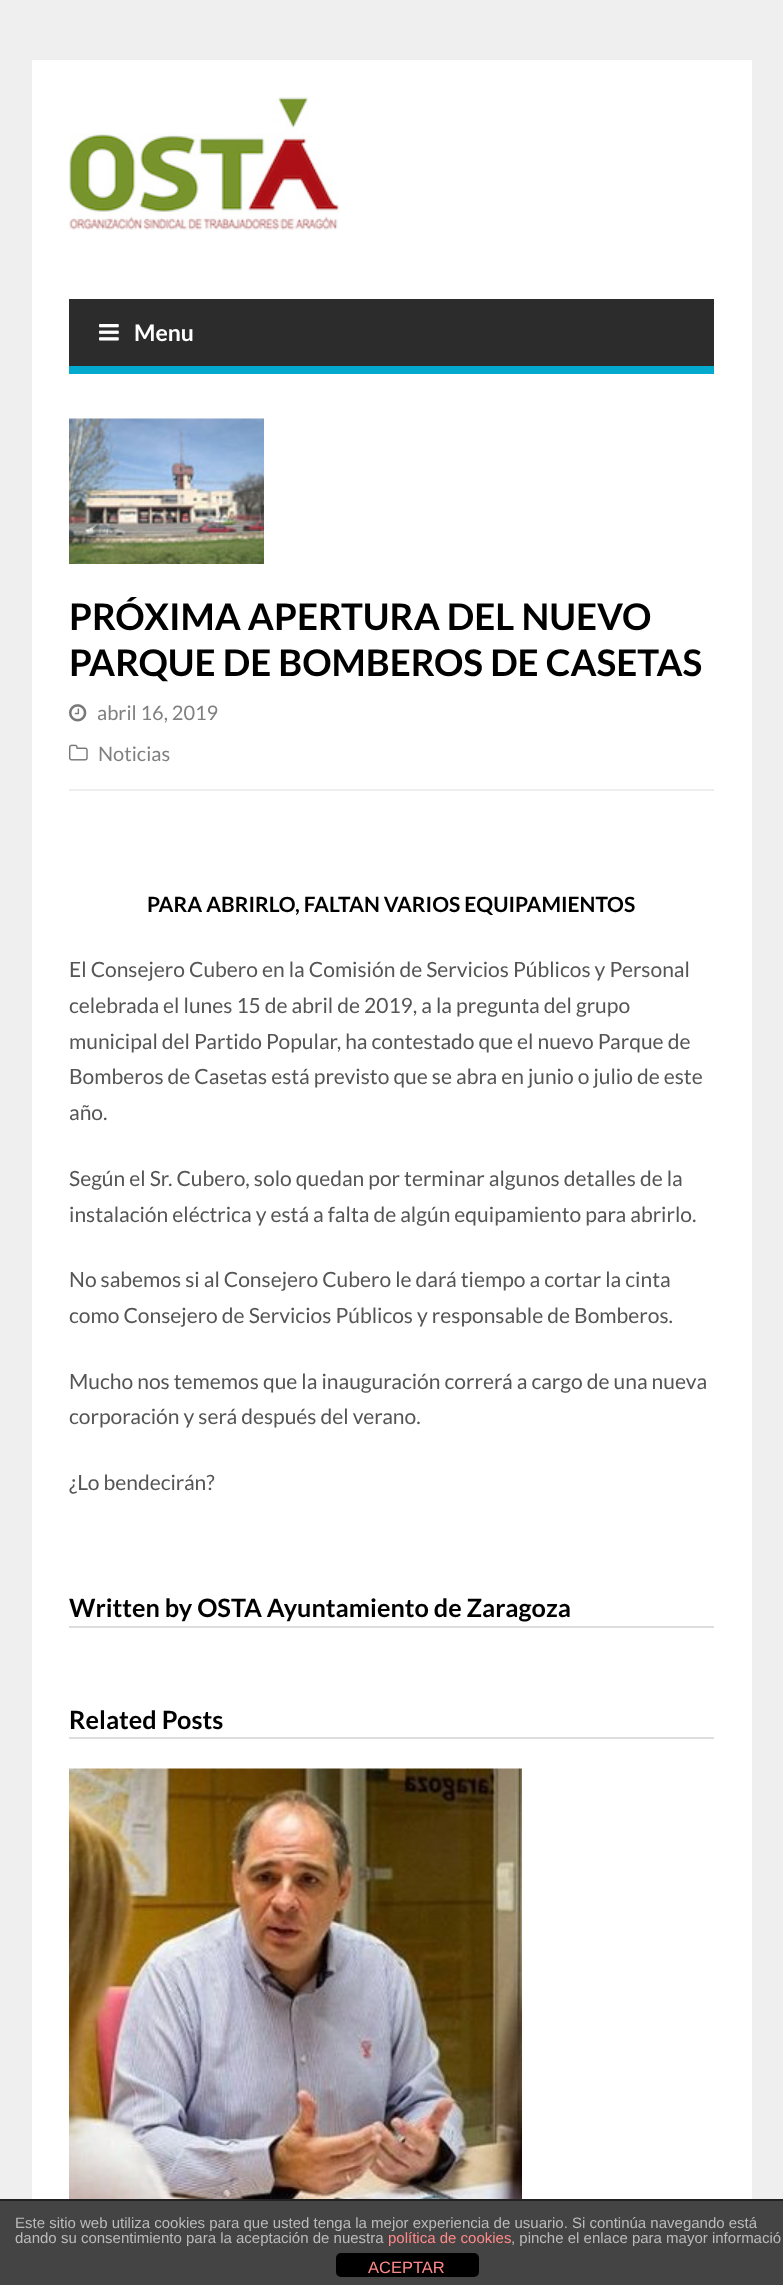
<svg xmlns="http://www.w3.org/2000/svg" width="783" height="2285" viewBox="0 0 783 2285">
  <rect width="100%" height="100%" fill="rgb(239,239,239)"/>
  <rect x="32" y="60" width="720" height="2139" fill="rgb(255,255,255)"/>
  <image x="69" y="97" width="270" height="133" href="pic1.png"/>
  <rect x="69" y="299" width="645" height="67" fill="rgb(44,44,44)"/>
  <rect x="69" y="366" width="645" height="8" fill="rgb(2,170,206)"/>
  <image x="99" y="324" width="20" height="17" href="pic2.png"/>
  <text x="134" y="341" font-family="Lato" font-size="23" font-weight="bold" fill="rgb(255,255,255)">Menu</text>
  <image x="69" y="418" width="195" height="146" href="pic3.png"/>
  <rect x="69" y="789" width="645" height="2" fill="rgb(238,238,238)"/>
  <g font-family="Lato" font-size="36.75" font-weight="bold" fill="rgb(0,0,0)">
    <text>
      <tspan x="69" y="630">PRÓXIMA APERTURA DEL NUEVO</tspan>
      <tspan x="69" y="676">PARQUE DE BOMBEROS DE CASETAS</tspan>
    </text>
  </g>
  <image x="69" y="704" width="18" height="18" href="pic4.png"/>
  <text x="97" y="720" font-family="Lato" font-size="20" fill="rgb(128,128,128)">abril 16, 2019</text>
  <image x="69" y="744" width="19" height="17" href="pic5.png"/>
  <text x="98" y="761" font-family="Lato" font-size="20" fill="rgb(128,128,128)">Noticias</text>
  <text x="147" y="912" font-family="Lato" font-size="21" font-weight="bold" fill="rgb(0,0,0)">PARA ABRIRLO, FALTAN VARIOS EQUIPAMIENTOS</text>
  <g font-family="Lato" font-size="21" fill="rgb(85,85,85)">
    <text>
      <tspan x="69" y="977">El Consejero Cubero en la Comisión de Servicios Públicos y Personal</tspan>
      <tspan x="69" y="1013">celebrada el lunes 15 de abril de 2019, a la pregunta del grupo</tspan>
      <tspan x="69" y="1049">municipal del Partido Popular, ha contestado que el nuevo Parque de</tspan>
      <tspan x="69" y="1084">Bomberos de Casetas está previsto que se abra en junio o julio de este</tspan>
      <tspan x="69" y="1120">año.</tspan>
    </text>
    <text>
      <tspan x="69" y="1186">Según el Sr. Cubero, solo quedan por terminar algunos detalles de la</tspan>
      <tspan x="69" y="1222">instalación eléctrica y está a falta de algún equipamiento para abrirlo.</tspan>
    </text>
    <text>
      <tspan x="69" y="1287">No sabemos si al Consejero Cubero le dará tiempo a cortar la cinta</tspan>
      <tspan x="69" y="1323">como Consejero de Servicios Públicos y responsable de Bomberos.</tspan>
    </text>
    <text>
      <tspan x="69" y="1389">Mucho nos tememos que la inauguración correrá a cargo de una nueva</tspan>
      <tspan x="69" y="1424">corporación y será después del verano.</tspan>
    </text>
    <text x="69" y="1490">¿Lo bendecirán?</text>
  </g>
  <rect x="69" y="1626" width="645" height="2" fill="rgb(221,221,221)"/>
  <text x="69" y="1617" font-family="Lato" font-size="25.25" font-weight="bold" fill="rgb(0,0,0)">Written by OSTA Ayuntamiento de Zaragoza</text>
  <rect x="69" y="1737" width="645" height="2" fill="rgb(221,221,221)"/>
  <text x="69" y="1729" font-family="Lato" font-size="25.25" font-weight="bold" fill="rgb(0,0,0)">Related Posts</text>
  <image x="69" y="1768" width="453" height="431" href="pic6.png"/>
  <rect x="0" y="2201" width="783" height="84" fill="rgb(68,68,68)"/>
  <rect x="0" y="2199" width="783" height="2" fill="rgb(34,34,34)"/>
  <g font-family="Liberation Sans" font-size="15" fill="rgb(187,187,187)">
    <text>
      <tspan x="15" y="2228">Este sitio web utiliza cookies para que usted tenga la mejor experiencia de usuario. Si continúa navegando está</tspan>
      <tspan x="15" y="2243">dando su consentimiento para la aceptación de nuestra</tspan>
    </text>
  </g>
  <text x="388" y="2243" font-family="Liberation Sans" font-size="15" fill="rgb(255,136,136)">política de cookies</text>
  <text x="511" y="2243" font-family="Liberation Sans" font-size="15" fill="rgb(187,187,187)">, pinche el enlace para mayor informació</text>
  <rect x="336" y="2253" width="143" height="24" rx="5" fill="rgb(0,0,0)"/>
  <text x="368" y="2273" font-family="Liberation Sans" font-size="16.5" fill="rgb(255,136,136)">ACEPTAR</text>
</svg>
